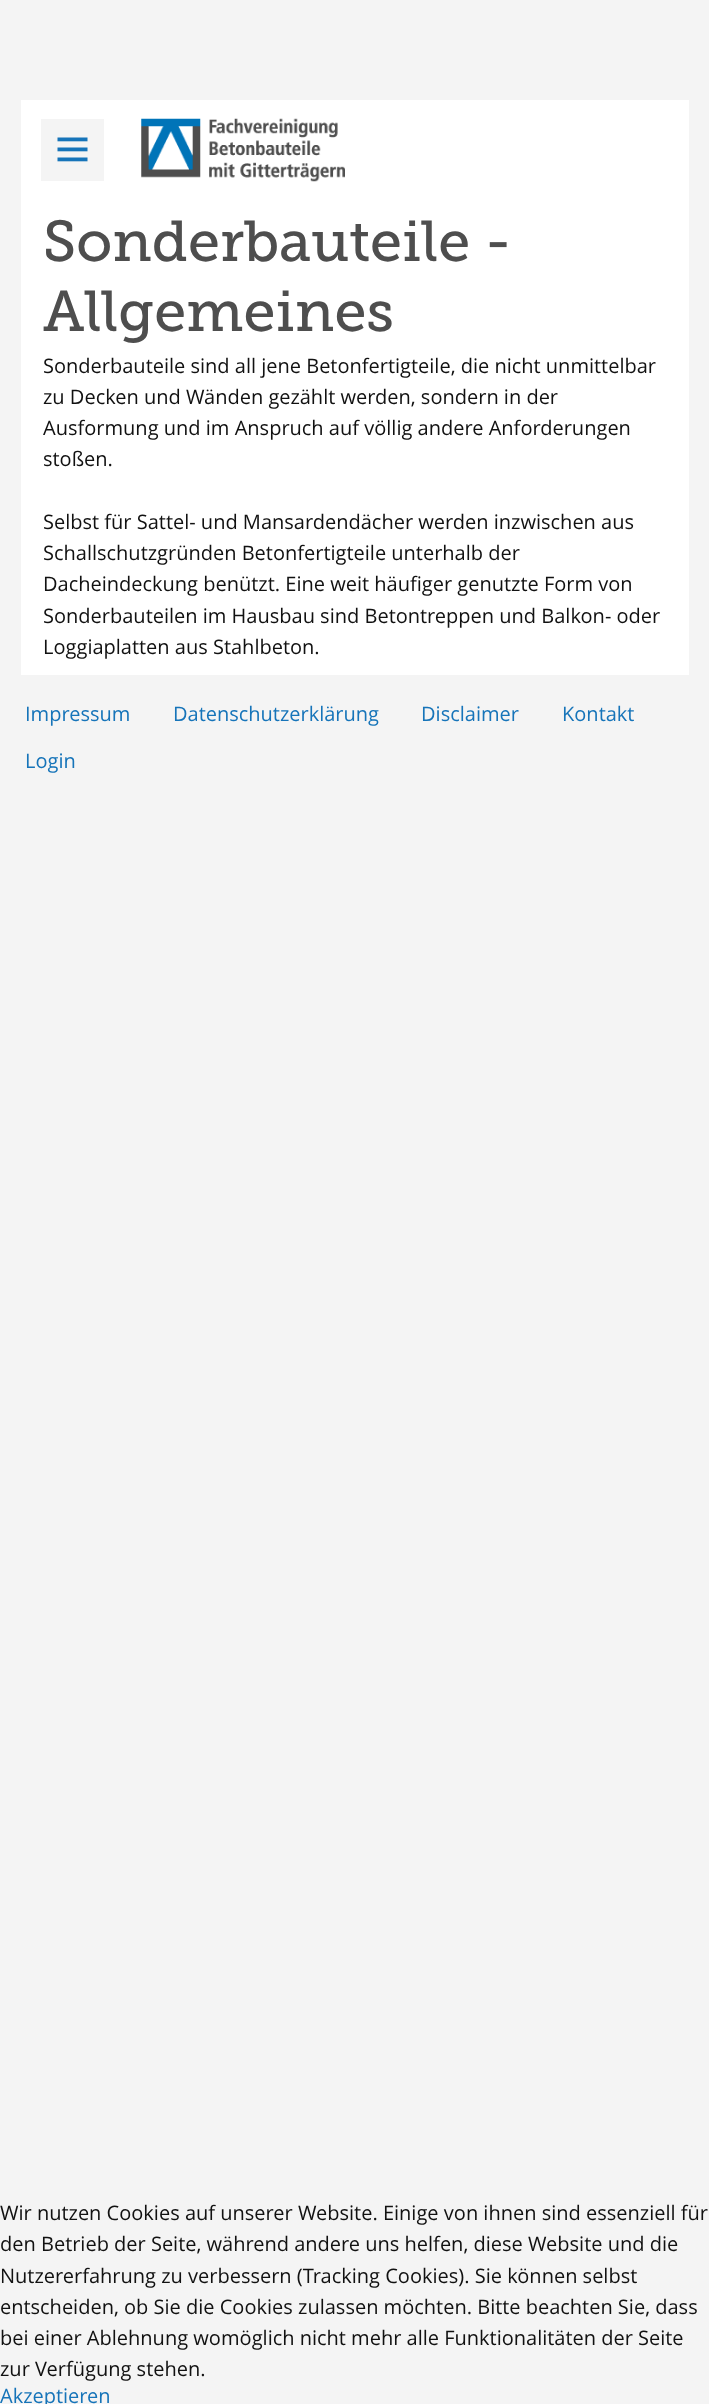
<svg xmlns="http://www.w3.org/2000/svg" width="709" height="2404" viewBox="0 0 709 2404">
  <rect width="100%" height="100%" fill="rgb(244,244,244)"/>
  <rect x="21" y="100" width="668" height="575" fill="rgb(255,255,255)"/>
  <rect x="41" y="119" width="63" height="62" fill="rgb(244,244,244)"/>
  <image x="57" y="137" width="31" height="25" href="pic1.png"/>
  <image x="141" y="118" width="204" height="64" href="pic2.png"/>
  <g font-family="'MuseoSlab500'" font-size="57.5" fill="rgb(78,78,78)">
    <text>
      <tspan x="43" y="261">Sonderbauteile -</tspan>
      <tspan x="43" y="331">Allgemeines</tspan>
    </text>
  </g>
  <g font-family="Open Sans" font-size="20" fill="rgb(17,17,17)">
    <text>
      <tspan x="43" y="373">Sonderbauteile sind all jene Betonfertigteile, die nicht unmittelbar</tspan>
      <tspan x="43" y="404">zu Decken und Wänden gezählt werden, sondern in der</tspan>
      <tspan x="43" y="435">Ausformung und im Anspruch auf völlig andere Anforderungen</tspan>
      <tspan x="43" y="466">stoßen.</tspan>
    </text>
    <text>
      <tspan x="43" y="529">Selbst für Sattel- und Mansardendächer werden inzwischen aus</tspan>
      <tspan x="43" y="560">Schallschutzgründen Betonfertigteile unterhalb der</tspan>
      <tspan x="43" y="591">Dacheindeckung benützt. Eine weit häufiger genutzte Form von</tspan>
      <tspan x="43" y="623">Sonderbauteilen im Hausbau sind Betontreppen und Balkon- oder</tspan>
      <tspan x="43" y="654">Loggiaplatten aus Stahlbeton.</tspan>
    </text>
  </g>
  <g font-family="Open Sans" font-size="20" fill="rgb(22,116,185)">
    <text x="25" y="721">Impressum</text>
    <text x="173" y="721">Datenschutzerklärung</text>
    <text x="421" y="721">Disclaimer</text>
    <text x="562" y="721">Kontakt</text>
    <text x="25" y="768">Login</text>
  </g>
  <g font-family="Open Sans" font-size="20" fill="rgb(17,17,17)">
    <text>
      <tspan x="0" y="2220">Wir nutzen Cookies auf unserer Website. Einige von ihnen sind essenziell für</tspan>
      <tspan x="0" y="2251">den Betrieb der Seite, während andere uns helfen, diese Website und die</tspan>
      <tspan x="0" y="2283">Nutzererfahrung zu verbessern (Tracking Cookies). Sie können selbst</tspan>
      <tspan x="0" y="2314">entscheiden, ob Sie die Cookies zulassen möchten. Bitte beachten Sie, dass</tspan>
      <tspan x="0" y="2345">bei einer Ablehnung womöglich nicht mehr alle Funktionalitäten der Seite</tspan>
      <tspan x="0" y="2376">zur Verfügung stehen.</tspan>
    </text>
  </g>
  <text x="0" y="2403" font-family="Open Sans" font-size="20" fill="rgb(22,116,185)">Akzeptieren</text>
</svg>
